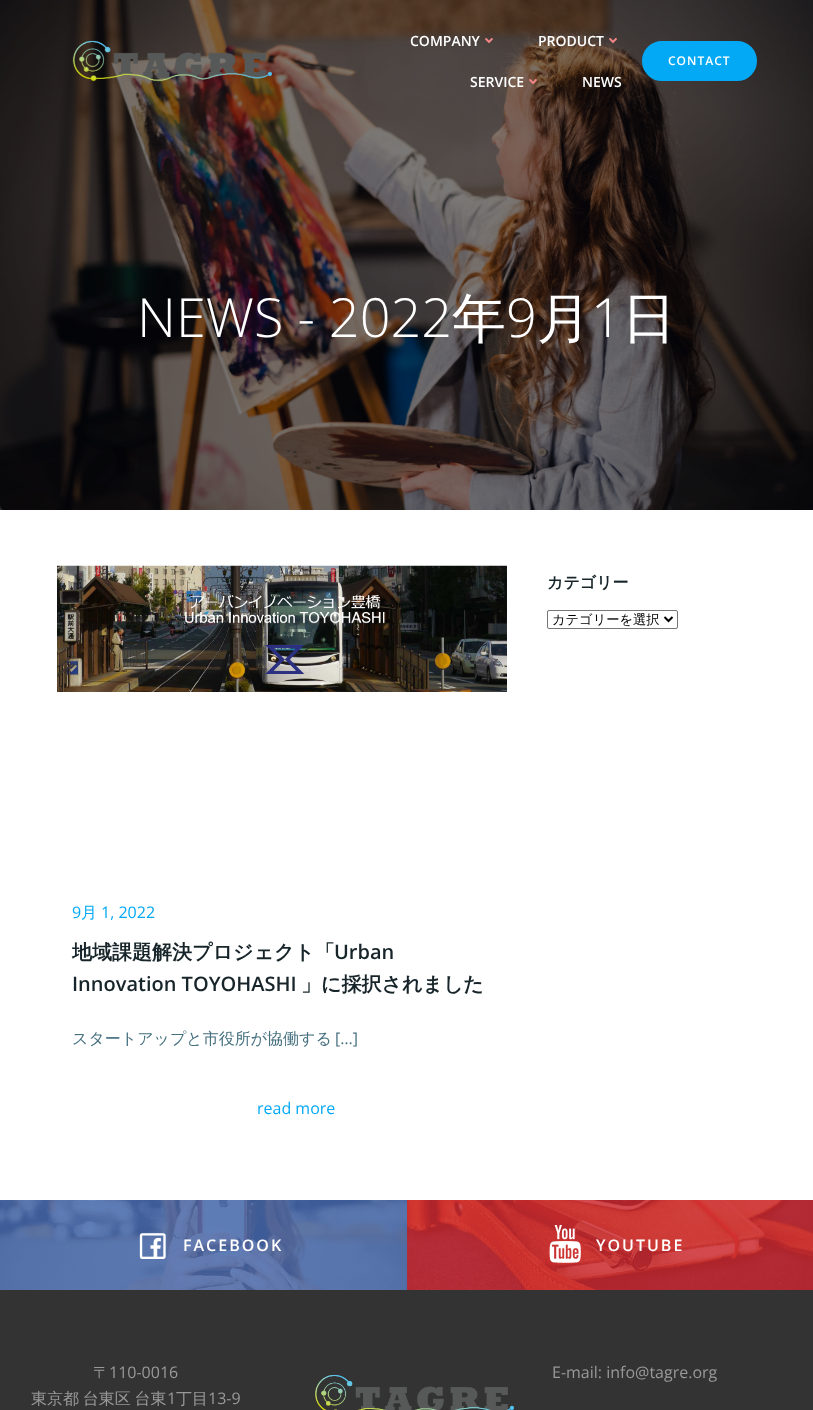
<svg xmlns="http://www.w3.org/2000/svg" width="813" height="1410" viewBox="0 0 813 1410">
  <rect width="100%" height="100%" fill="rgb(255,255,255)"/>
  <image x="0" y="0" width="813" height="510" href="pic5.png"/>
  <image x="72" y="40" width="200" height="42" href="pic1.png"/>
  <text x="410" y="46" font-family="Open Sans" font-size="14" font-weight="600" fill="rgb(255,255,255)">COMPANY</text>
  <image x="485" y="38" width="8" height="5" href="pic2.png"/>
  <text x="538" y="46" font-family="Open Sans" font-size="14" font-weight="600" fill="rgb(255,255,255)">PRODUCT</text>
  <image x="609" y="38" width="8" height="5" href="pic3.png"/>
  <text x="470" y="87" font-family="Open Sans" font-size="14" font-weight="600" fill="rgb(255,255,255)">SERVICE</text>
  <image x="529" y="79" width="8" height="5" href="pic4.png"/>
  <text x="582" y="87" font-family="Open Sans" font-size="14" font-weight="600" fill="rgb(255,255,255)">NEWS</text>
  <rect x="643" y="42" width="113" height="38" rx="19" fill="rgb(3,169,244)" stroke="rgb(3,169,244)" stroke-width="2"/>
  <text x="668" y="65" font-family="Open Sans" font-size="12" font-weight="600" letter-spacing="1" fill="rgb(255,255,255)">CONTACT</text>
  <text x="137" y="337" font-family="Open Sans" font-size="54" font-weight="300" fill="rgb(255,255,255)">NEWS - 2022</text>
  <text x="452" y="337" font-family="WenQuanYi Zen Hei" font-size="54" font-weight="500" fill="rgb(255,255,255)">年</text>
  <text x="506" y="337" font-family="Open Sans" font-size="54" font-weight="300" fill="rgb(255,255,255)">9</text>
  <text x="537" y="337" font-family="WenQuanYi Zen Hei" font-size="54" font-weight="500" fill="rgb(255,255,255)">月</text>
  <text x="591" y="337" font-family="Open Sans" font-size="54" font-weight="300" fill="rgb(255,255,255)">1</text>
  <text x="622" y="337" font-family="WenQuanYi Zen Hei" font-size="54" font-weight="500" fill="rgb(255,255,255)">日</text>
  <text x="547" y="588" font-family="WenQuanYi Zen Hei" font-size="16" font-weight="bold" fill="rgb(23,37,42)">カテゴリー</text>
  <rect x="547.5" y="610.5" width="130" height="18" rx="1.5" fill="none" stroke="rgb(118,118,118)"/>
  <path d="M664.5 617L668.5 621L672.5 617" fill="none" stroke="rgb(0,0,0)" stroke-width="2"/>
  <text x="552" y="624" font-family="WenQuanYi Zen Hei" font-size="13.25" font-weight="500" fill="rgb(0,0,0)">カテゴリーを選択</text>
  <image x="57" y="565" width="450" height="127" href="pic6.png"/>
  <text x="72" y="918" font-family="Open Sans" font-size="16" fill="rgb(3,169,244)">9</text>
  <text x="81" y="918" font-family="WenQuanYi Zen Hei" font-size="16" font-weight="500" fill="rgb(3,169,244)">月</text>
  <text x="101" y="918" font-family="Open Sans" font-size="16" fill="rgb(3,169,244)">1, 2022</text>
  <text x="72" y="959" font-family="WenQuanYi Zen Hei" font-size="20" font-weight="bold" fill="rgb(23,37,42)">地域課題解決プロジェクト「</text>
  <g font-family="Open Sans" font-size="20" font-weight="600" fill="rgb(23,37,42)">
    <text x="334" y="959">Urban</text>
    <text x="72" y="991">Innovation TOYOHASHI</text>
  </g>
  <text x="301" y="991" font-family="WenQuanYi Zen Hei" font-size="20" font-weight="bold" fill="rgb(23,37,42)">」に採択されました</text>
  <text x="72" y="1044" font-family="WenQuanYi Zen Hei" font-size="16" font-weight="500" fill="rgb(70,112,127)">スタートアップと市役所が協働する</text>
  <text x="335" y="1044" font-family="Open Sans" font-size="16" fill="rgb(70,112,127)">[…]</text>
  <text x="257" y="1114" font-family="Open Sans" font-size="16" fill="rgb(3,169,244)">read more</text>
  <image x="0" y="1200" width="407" height="90" href="pic7.png"/>
  <image x="139" y="1233" width="27" height="26" href="pic8.png"/>
  <text x="183" y="1251" font-family="Open Sans" font-size="16" font-weight="600" letter-spacing="2" fill="rgb(255,255,255)">FACEBOOK</text>
  <image x="407" y="1200" width="406" height="90" href="pic9.png"/>
  <image x="549" y="1225" width="32" height="38" href="pic10.png"/>
  <text x="596" y="1251" font-family="Open Sans" font-size="16" font-weight="600" letter-spacing="2" fill="rgb(255,255,255)">YOUTUBE</text>
  <rect x="0" y="1290" width="813" height="120" fill="rgb(51,51,51)"/>
  <text x="93" y="1378" font-family="WenQuanYi Zen Hei" font-size="16" font-weight="500" fill="rgb(153,153,153)">〒</text>
  <text x="109" y="1378" font-family="Open Sans" font-size="16" fill="rgb(153,153,153)">110-0016</text>
  <text x="31" y="1404" word-spacing="-1" font-family="WenQuanYi Zen Hei" font-size="16" font-weight="500" fill="rgb(153,153,153)">東京都 台東区 台東</text>
  <text x="167" y="1404" font-family="Open Sans" font-size="16" fill="rgb(153,153,153)">1</text>
  <text x="176" y="1404" font-family="WenQuanYi Zen Hei" font-size="16" font-weight="500" fill="rgb(153,153,153)">丁目</text>
  <text x="208" y="1404" font-family="Open Sans" font-size="16" fill="rgb(153,153,153)">13-9</text>
  <image x="315" y="1374" width="199" height="36" href="pic11.png"/>
  <text x="552" y="1378" font-family="Open Sans" font-size="16" fill="rgb(153,153,153)">E-mail: info@tagre.org</text>
</svg>
